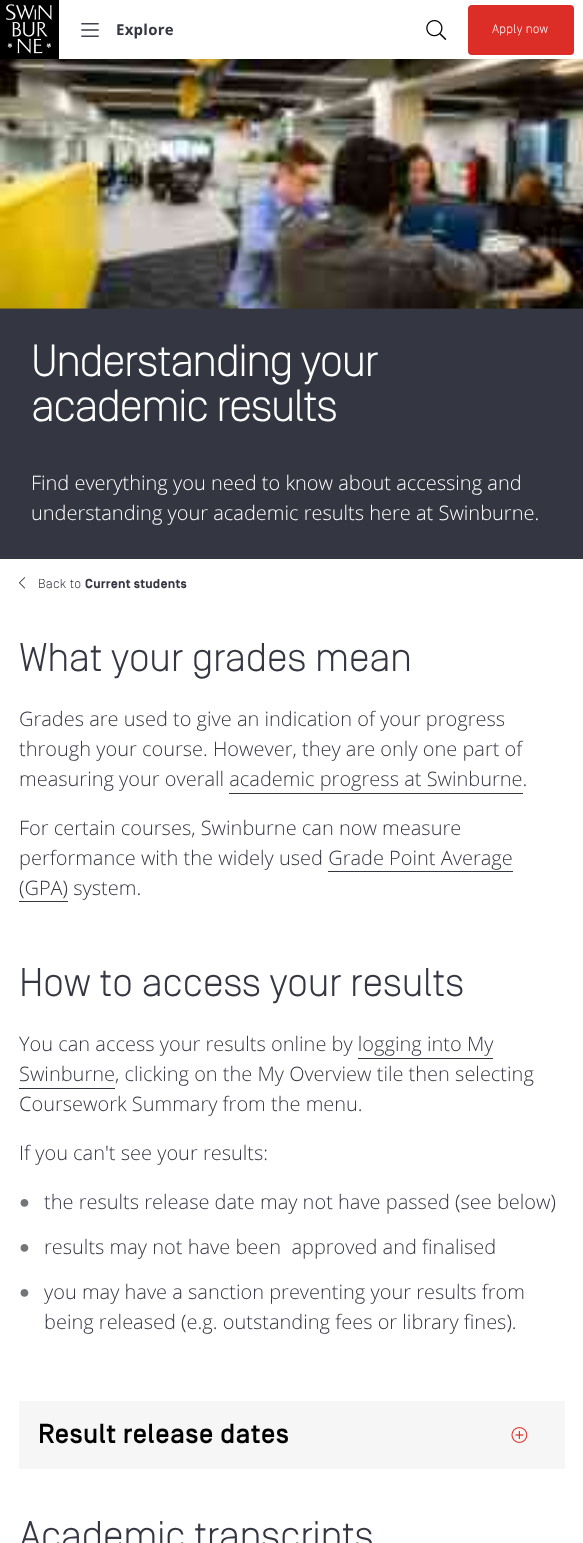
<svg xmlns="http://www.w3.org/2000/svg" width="583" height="1543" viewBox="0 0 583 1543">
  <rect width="100%" height="100%" fill="rgb(255,255,255)"/>
  <image x="0" y="0" width="59" height="59" href="pic1.png"/>
  <image x="81" y="23" width="18" height="14" href="pic2.png"/>
  <text x="116" y="35" font-family="Open Sans" font-size="15" font-weight="bold" letter-spacing="0.25" fill="rgb(52,54,66)">Explore</text>
  <image x="426" y="20" width="21" height="20" href="pic3.png"/>
  <rect x="468" y="5" width="106" height="50" rx="4" fill="rgb(220,45,39)"/>
  <text x="492" y="33" font-family="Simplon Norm" font-size="12.5" font-weight="300" letter-spacing="0.25" fill="rgb(255,255,255)">Apply now</text>
  <rect x="0" y="308" width="583" height="251" fill="rgb(52,54,66)"/>
  <image x="0" y="59" width="583" height="250" href="pic4.png"/>
  <g font-family="Simplon Norm" font-size="45" font-weight="300" letter-spacing="-1.6" fill="rgb(255,255,255)">
    <text>
      <tspan x="31" y="376">Understanding your</tspan>
      <tspan x="31" y="421">academic results</tspan>
    </text>
  </g>
  <g font-family="Open Sans" font-size="20" font-weight="300" fill="rgb(255,255,255)">
    <text>
      <tspan x="31" y="490">Find everything you need to know about accessing and</tspan>
      <tspan x="31" y="520">understanding your academic results here at Swinburne.</tspan>
    </text>
  </g>
  <image x="19" y="577" width="7" height="12" href="pic5.png"/>
  <text x="38" y="588" font-family="Simplon Norm" font-size="13" font-weight="300" letter-spacing="0.25" fill="rgb(52,54,66)">Back to</text>
  <text x="85" y="588" font-family="Simplon Norm" font-size="13" font-weight="bold" letter-spacing="0.25" fill="rgb(52,54,66)">Current students</text>
  <text x="19" y="671" font-family="Simplon Norm" font-size="40" font-weight="300" letter-spacing="-0.4" fill="rgb(52,54,66)">What your grades mean</text>
  <g font-family="Open Sans" font-size="20" font-weight="300" fill="rgb(52,54,66)">
    <text>
      <tspan x="19" y="726">Grades are used to give an indication of your progress</tspan>
      <tspan x="19" y="756">through your course. However, they are only one part of</tspan>
      <tspan x="19" y="786">measuring your overall academic progress at Swinburne.</tspan>
    </text>
  </g>
  <rect x="229" y="793" width="294" height="1" fill="rgb(52,54,66)"/>
  <g font-family="Open Sans" font-size="20" font-weight="300" fill="rgb(52,54,66)">
    <text>
      <tspan x="19" y="835">For certain courses, Swinburne can now measure</tspan>
      <tspan x="19" y="865">performance with the widely used Grade Point Average</tspan>
      <tspan x="19" y="895">(GPA) system.</tspan>
    </text>
  </g>
  <rect x="328" y="871" width="185" height="1" fill="rgb(52,54,66)"/>
  <rect x="19" y="901" width="49" height="1" fill="rgb(52,54,66)"/>
  <text x="19" y="996" font-family="Simplon Norm" font-size="40" font-weight="300" letter-spacing="-0.4" fill="rgb(52,54,66)">How to access your results</text>
  <g font-family="Open Sans" font-size="20" font-weight="300" fill="rgb(52,54,66)">
    <text>
      <tspan x="19" y="1051">You can access your results online by logging into My</tspan>
      <tspan x="19" y="1081">Swinburne, clicking on the My Overview tile then selecting</tspan>
    </text>
  </g>
  <rect x="358" y="1058" width="135" height="1" fill="rgb(52,54,66)"/>
  <rect x="19" y="1088" width="96" height="1" fill="rgb(52,54,66)"/>
  <g font-family="Open Sans" font-size="20" font-weight="300" fill="rgb(52,54,66)">
    <text x="19" y="1111">Coursework Summary from the menu.</text>
    <text x="19" y="1160">If you can't see your results:</text>
  </g>
  <text x="19" y="1208" font-family="Liberation Sans" font-size="18" fill="rgb(115,117,120)">●</text>
  <text x="44" y="1209" font-family="Open Sans" font-size="20" font-weight="300" fill="rgb(52,54,66)">the results release date may not have passed (see below)</text>
  <text x="19" y="1253" font-family="Liberation Sans" font-size="18" fill="rgb(115,117,120)">●</text>
  <text x="44" y="1254" font-family="Open Sans" font-size="20" font-weight="300" fill="rgb(52,54,66)" xml:space="preserve">results may not have been  approved and finalised</text>
  <text x="19" y="1298" font-family="Liberation Sans" font-size="18" fill="rgb(115,117,120)">●</text>
  <g font-family="Open Sans" font-size="20" font-weight="300" fill="rgb(52,54,66)">
    <text>
      <tspan x="44" y="1299">you may have a sanction preventing your results from</tspan>
      <tspan x="44" y="1329">being released (e.g. outstanding fees or library fines).</tspan>
    </text>
  </g>
  <rect x="19" y="1401" width="546" height="68" fill="rgb(246,246,246)"/>
  <text x="38" y="1443" font-family="Simplon Norm" font-size="27.5" font-weight="500" letter-spacing="0.25" fill="rgb(0,0,0)">Result release dates</text>
  <image x="511" y="1427" width="17" height="16" href="pic6.png"/>
  <text x="19" y="1549" font-family="Simplon Norm" font-size="40" font-weight="300" letter-spacing="-0.4" fill="rgb(52,54,66)">Academic transcripts</text>
</svg>
